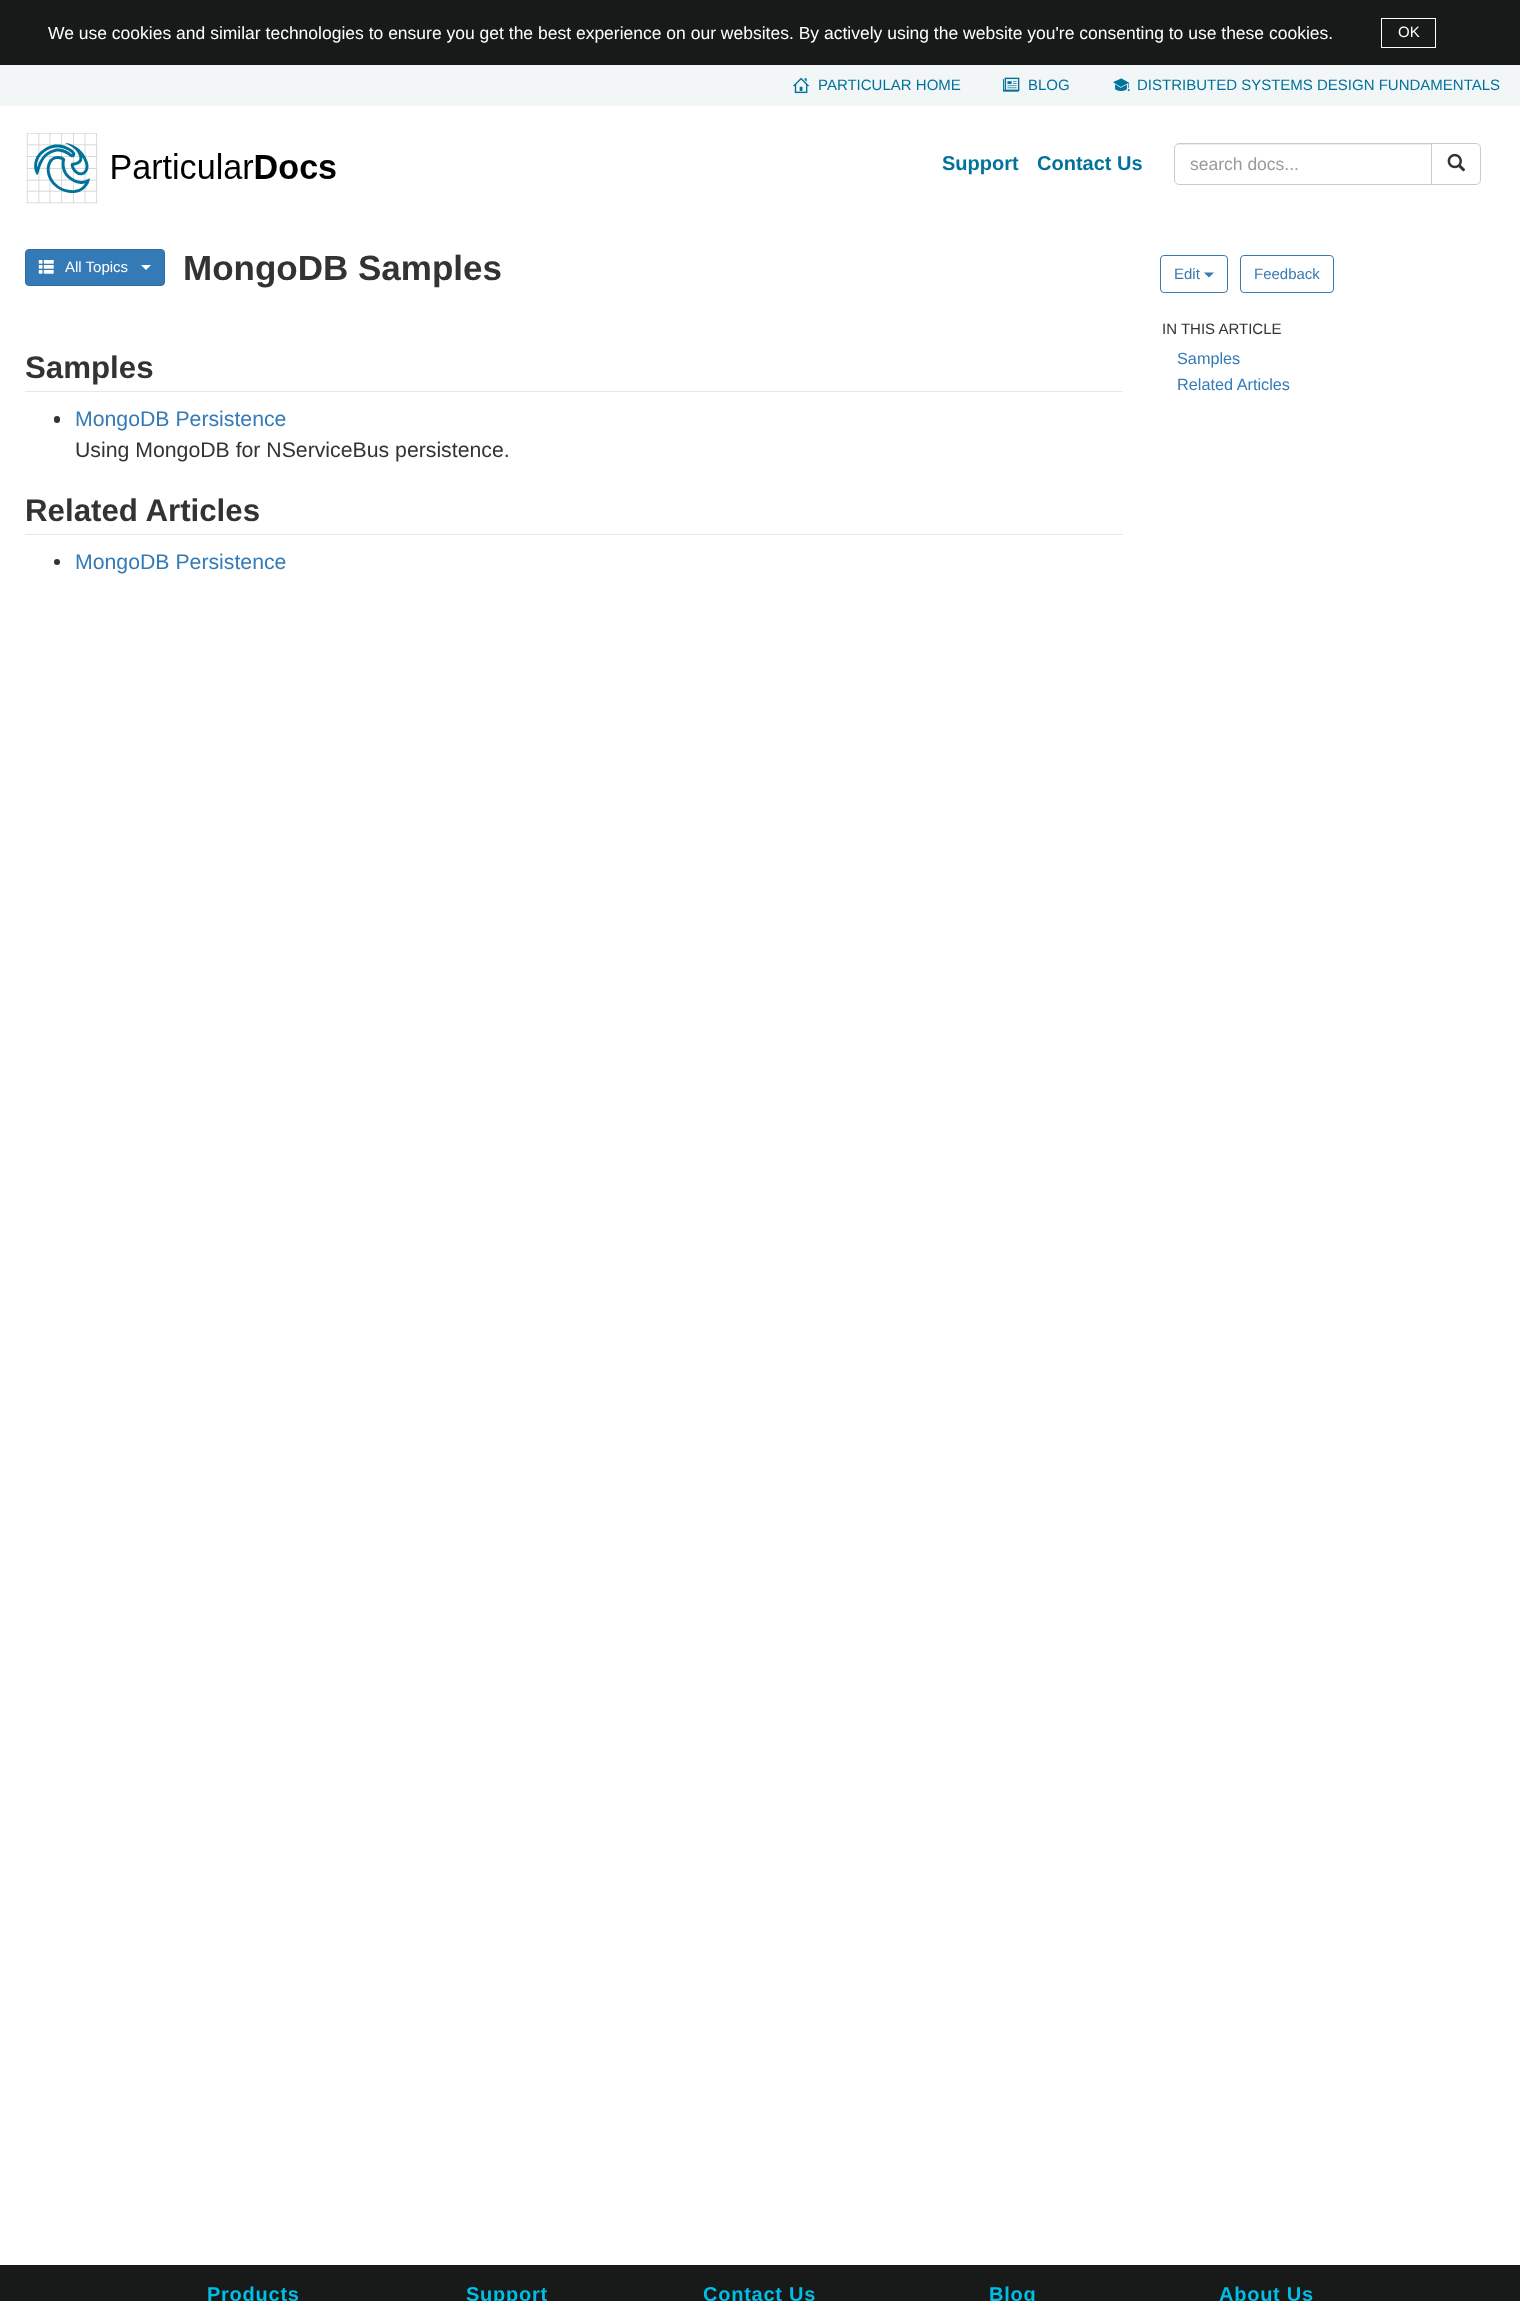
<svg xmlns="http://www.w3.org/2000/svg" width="1520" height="2301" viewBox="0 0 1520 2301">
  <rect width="100%" height="100%" fill="rgb(255,255,255)"/>
  <rect x="0" y="0" width="1520" height="65" fill="rgb(24,25,25)"/>
  <text x="48" y="39" font-family="Liberation Sans" font-size="17.5" fill="rgb(255,255,255)">We use cookies and similar technologies to ensure you get the best experience on our websites. By actively using the website you're consenting to use these cookies.</text>
  <rect x="1381.5" y="18.5" width="54" height="29" fill="none" stroke="rgb(255,255,255)"/>
  <text x="1398" y="37" font-family="Liberation Sans" font-size="15" fill="rgb(255,255,255)">OK</text>
  <rect x="0" y="65" width="1520" height="41" fill="rgb(242,246,247)"/>
  <image x="793" y="77" width="17" height="17" href="pic1.png"/>
  <text x="818" y="90" font-family="Liberation Sans" font-size="15" fill="rgb(0,114,156)">PARTICULAR HOME</text>
  <image x="1003" y="77" width="17" height="15" href="pic2.png"/>
  <text x="1028" y="90" font-family="Liberation Sans" font-size="15" fill="rgb(0,114,156)">BLOG</text>
  <image x="1113" y="78" width="17" height="13" href="pic3.png"/>
  <text x="1137" y="90" font-family="Liberation Sans" font-size="15" fill="rgb(0,114,156)">DISTRIBUTED SYSTEMS DESIGN FUNDAMENTALS</text>
  <image x="26" y="133" width="310" height="71" href="pic4.png"/>
  <g font-family="Liberation Sans" font-size="20" font-weight="bold" fill="rgb(0,114,156)">
    <text x="942" y="170">Support</text>
    <text x="1037" y="170">Contact Us</text>
  </g>
  <path d="M1179 145H1431V144H1179C1177 144 1175 146 1175 148V149C1175 147 1177 145 1179 145Z" fill="rgb(236,236,236)"/>
  <path d="M1179 143.5H1432.5V184.5H1179C1176.5 184.5 1174.5 182.5 1174.5 180V148C1174.5 145.5 1176.5 143.5 1179 143.5Z" fill="none" stroke="rgb(204,204,204)"/>
  <text x="1190" y="170" font-family="Liberation Sans" font-size="17.5" fill="rgb(153,153,153)">search docs...</text>
  <path d="M1431.5 143.5H1476C1478.5 143.5 1480.5 145.5 1480.5 148V180C1480.5 182.5 1478.5 184.5 1476 184.5H1431.5Z" fill="rgb(255,255,255)" stroke="rgb(204,204,204)"/>
  <image x="1447" y="153" width="19" height="19" href="pic5.png"/>
  <rect x="25.5" y="249.5" width="139" height="36" rx="3.5" fill="rgb(51,122,183)" stroke="rgb(46,109,164)"/>
  <image x="38" y="260" width="16" height="14" href="pic6.png"/>
  <text x="65" y="272" font-family="Liberation Sans" font-size="15" fill="rgb(255,255,255)">All Topics</text>
  <path d="M141 265H151L146 270Z" fill="rgb(255,255,255)"/>
  <text x="183" y="280" font-family="Liberation Sans" font-size="35" font-weight="bold" fill="rgb(51,51,51)">MongoDB Samples</text>
  <rect x="25" y="391" width="1098" height="1" fill="rgb(217,237,247)"/>
  <text x="25" y="378" font-family="Liberation Sans" font-size="31.25" font-weight="bold" fill="rgb(51,51,51)">Samples</text>
  <rect x="54" y="416" width="6" height="7" rx="3" fill="rgb(51,51,51)"/>
  <text x="75" y="426" font-family="Liberation Sans" font-size="21.25" fill="rgb(51,122,183)">MongoDB Persistence</text>
  <text x="75" y="457" font-family="Liberation Sans" font-size="21.25" fill="rgb(51,51,51)">Using MongoDB for NServiceBus persistence.</text>
  <rect x="25" y="534" width="1098" height="1" fill="rgb(217,237,247)"/>
  <text x="25" y="521" font-family="Liberation Sans" font-size="31.25" font-weight="bold" fill="rgb(51,51,51)">Related Articles</text>
  <circle cx="57" cy="562" r="3" fill="rgb(51,51,51)"/>
  <text x="75" y="569" font-family="Liberation Sans" font-size="21.25" fill="rgb(51,122,183)">MongoDB Persistence</text>
  <rect x="1160.5" y="255.5" width="67" height="37" rx="3.5" fill="none" stroke="rgb(58,122,176)"/>
  <text x="1174" y="279" font-family="Liberation Sans" font-size="15" fill="rgb(58,122,176)">Edit</text>
  <path d="M1204 272.5H1214L1209 277.5Z" fill="rgb(58,122,176)"/>
  <rect x="1240.5" y="255.5" width="93" height="37" rx="3.5" fill="none" stroke="rgb(58,122,176)"/>
  <text x="1254" y="279" font-family="Liberation Sans" font-size="15" fill="rgb(58,122,176)">Feedback</text>
  <text x="1162" y="334" font-family="Liberation Sans" font-size="15" fill="rgb(51,51,51)">IN THIS ARTICLE</text>
  <g font-family="Liberation Sans" font-size="16.25" fill="rgb(51,122,183)">
    <text>
      <tspan x="1177" y="364">Samples</tspan>
      <tspan x="1177" y="390">Related Articles</tspan>
    </text>
  </g>
  <rect x="0" y="2265" width="1520" height="36" fill="rgb(24,25,25)"/>
  <g font-family="Liberation Sans" font-size="20" font-weight="bold" letter-spacing="0.75" fill="rgb(0,191,230)">
    <text x="207" y="2301">Products</text>
    <text x="466" y="2301">Support</text>
    <text x="703" y="2301">Contact Us</text>
    <text x="989" y="2301">Blog</text>
    <text x="1219" y="2301">About Us</text>
  </g>
</svg>
